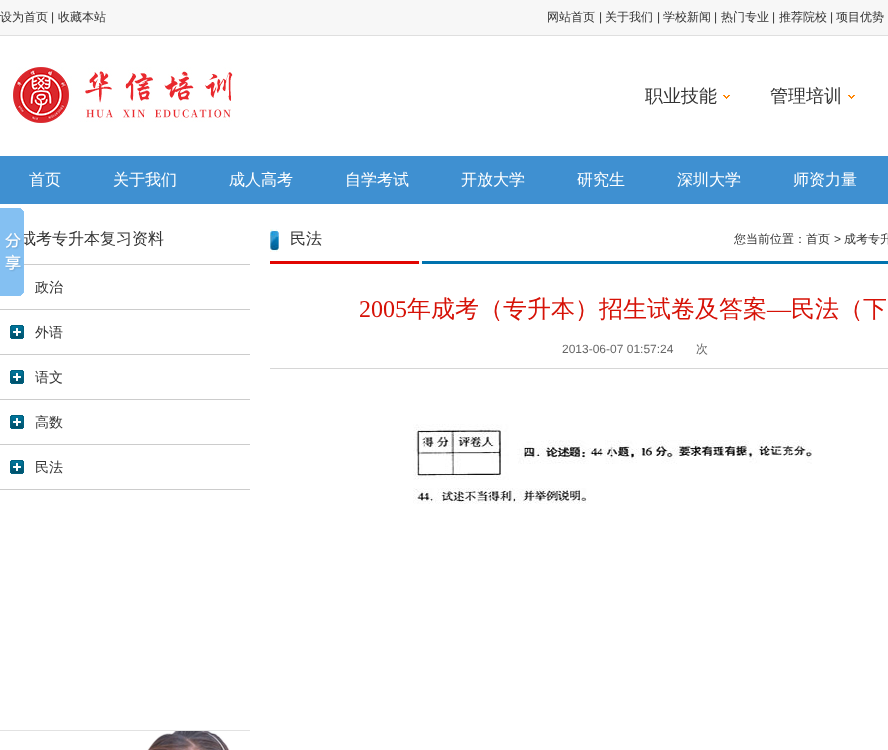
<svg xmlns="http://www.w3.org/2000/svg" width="888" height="750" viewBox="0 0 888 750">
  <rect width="100%" height="100%" fill="rgb(255,255,255)"/>
  <rect x="0" y="0" width="888" height="35" fill="rgb(247,247,247)"/>
  <rect x="0" y="35" width="888" height="1" fill="rgb(223,223,223)"/>
  <text x="0" y="21" font-family="WenQuanYi Zen Hei" font-size="12" font-weight="500" fill="rgb(51,51,51)">设为首页</text>
  <text x="51" y="21" font-family="Liberation Sans" font-size="12" fill="rgb(51,51,51)">|</text>
  <g font-family="WenQuanYi Zen Hei" font-size="12" font-weight="500" fill="rgb(51,51,51)">
    <text x="58" y="21">收藏本站</text>
    <text x="547" y="21">网站首页</text>
  </g>
  <text x="599" y="21" font-family="Liberation Sans" font-size="12" fill="rgb(51,51,51)">|</text>
  <text x="605" y="21" font-family="WenQuanYi Zen Hei" font-size="12" font-weight="500" fill="rgb(51,51,51)">关于我们</text>
  <text x="657" y="21" font-family="Liberation Sans" font-size="12" fill="rgb(51,51,51)">|</text>
  <text x="663" y="21" font-family="WenQuanYi Zen Hei" font-size="12" font-weight="500" fill="rgb(51,51,51)">学校新闻</text>
  <text x="714" y="21" font-family="Liberation Sans" font-size="12" fill="rgb(51,51,51)">|</text>
  <text x="721" y="21" font-family="WenQuanYi Zen Hei" font-size="12" font-weight="500" fill="rgb(51,51,51)">热门专业</text>
  <text x="772" y="21" font-family="Liberation Sans" font-size="12" fill="rgb(51,51,51)">|</text>
  <text x="779" y="21" font-family="WenQuanYi Zen Hei" font-size="12" font-weight="500" fill="rgb(51,51,51)">推荐院校</text>
  <text x="830" y="21" font-family="Liberation Sans" font-size="12" fill="rgb(51,51,51)">|</text>
  <text x="836" y="21" font-family="WenQuanYi Zen Hei" font-size="12" font-weight="500" fill="rgb(51,51,51)">项目优势</text>
  <image x="13" y="67" width="220" height="56" href="pic1.png"/>
  <text x="645" y="102" font-family="WenQuanYi Zen Hei" font-size="18" font-weight="500" fill="rgb(51,51,51)">职业技能</text>
  <image x="723" y="95" width="7" height="4" href="pic2.png"/>
  <text x="770" y="102" font-family="WenQuanYi Zen Hei" font-size="18" font-weight="500" fill="rgb(51,51,51)">管理培训</text>
  <image x="848" y="95" width="7" height="4" href="pic2.png"/>
  <rect x="0" y="156" width="888" height="48" fill="rgb(63,144,209)"/>
  <g font-family="WenQuanYi Zen Hei" font-size="16" font-weight="500" fill="rgb(255,255,255)">
    <text x="29" y="185">首页</text>
    <text x="113" y="185">关于我们</text>
    <text x="229" y="185">成人高考</text>
    <text x="345" y="185">自学考试</text>
    <text x="461" y="185">开放大学</text>
    <text x="577" y="185">研究生</text>
    <text x="677" y="185">深圳大学</text>
    <text x="793" y="185">师资力量</text>
  </g>
  <text x="20" y="244" font-family="WenQuanYi Zen Hei" font-size="16" font-weight="500" fill="rgb(51,51,51)">成考专升本复习资料</text>
  <image x="23" y="293" width="1" height="1" href="pic4.png"/>
  <image x="0" y="208" width="24" height="88" href="pic3.png"/>
  <rect x="0" y="489" width="250" height="1" fill="rgb(204,204,204)"/>
  <rect x="24" y="264" width="226" height="1" fill="rgb(204,204,204)"/>
  <text x="35" y="292" font-family="WenQuanYi Zen Hei" font-size="14" font-weight="500" fill="rgb(51,51,51)">政治</text>
  <rect x="0" y="309" width="250" height="1" fill="rgb(204,204,204)"/>
  <image x="10" y="325" width="14" height="14" href="pic5.png"/>
  <text x="35" y="337" font-family="WenQuanYi Zen Hei" font-size="14" font-weight="500" fill="rgb(51,51,51)">外语</text>
  <rect x="0" y="354" width="250" height="1" fill="rgb(204,204,204)"/>
  <image x="10" y="370" width="14" height="14" href="pic5.png"/>
  <text x="35" y="382" font-family="WenQuanYi Zen Hei" font-size="14" font-weight="500" fill="rgb(51,51,51)">语文</text>
  <rect x="0" y="399" width="250" height="1" fill="rgb(204,204,204)"/>
  <image x="10" y="415" width="14" height="14" href="pic5.png"/>
  <text x="35" y="427" font-family="WenQuanYi Zen Hei" font-size="14" font-weight="500" fill="rgb(51,51,51)">高数</text>
  <rect x="0" y="444" width="250" height="1" fill="rgb(204,204,204)"/>
  <image x="10" y="460" width="14" height="14" href="pic5.png"/>
  <text x="35" y="472" font-family="WenQuanYi Zen Hei" font-size="14" font-weight="500" fill="rgb(51,51,51)">民法</text>
  <image x="147" y="731" width="83" height="19" href="pic6.png"/>
  <rect x="0" y="730" width="250" height="1" fill="rgb(226,226,226)"/>
  <image x="270" y="261" width="618" height="3" href="pic7.png"/>
  <image x="270" y="229" width="9" height="23" href="pic8.png"/>
  <text x="290" y="244" font-family="WenQuanYi Zen Hei" font-size="16" font-weight="500" fill="rgb(51,51,51)">民法</text>
  <text x="734" y="243" font-family="WenQuanYi Zen Hei" font-size="12" font-weight="500" fill="rgb(51,51,51)">您当前位置：首页</text>
  <text x="834" y="243" font-family="Liberation Sans" font-size="12" fill="rgb(51,51,51)">&gt;</text>
  <text x="844" y="243" font-family="WenQuanYi Zen Hei" font-size="12" font-weight="500" fill="rgb(51,51,51)">成考专升</text>
  <rect x="270" y="368" width="618" height="1" fill="rgb(214,214,214)"/>
  <text x="359" y="317" font-family="Liberation Serif" font-size="24" fill="rgb(214,18,7)">2005</text>
  <text x="407" y="317" font-family="WenQuanYi Zen Hei" font-size="24" font-weight="500" fill="rgb(214,18,7)">年成考（专升本）招生试卷及答案</text>
  <text x="767" y="317" font-family="Liberation Serif" font-size="24" fill="rgb(214,18,7)">—</text>
  <text x="791" y="317" font-family="WenQuanYi Zen Hei" font-size="24" font-weight="500" fill="rgb(214,18,7)">民法（下</text>
  <text x="562" y="353" font-family="Liberation Sans" font-size="12" fill="rgb(102,102,102)">2013-06-07 01:57:24</text>
  <text x="696" y="353" font-family="WenQuanYi Zen Hei" font-size="12" font-weight="500" fill="rgb(102,102,102)">次</text>
  <image x="413" y="424" width="399" height="80" href="pic9.png"/>
</svg>
